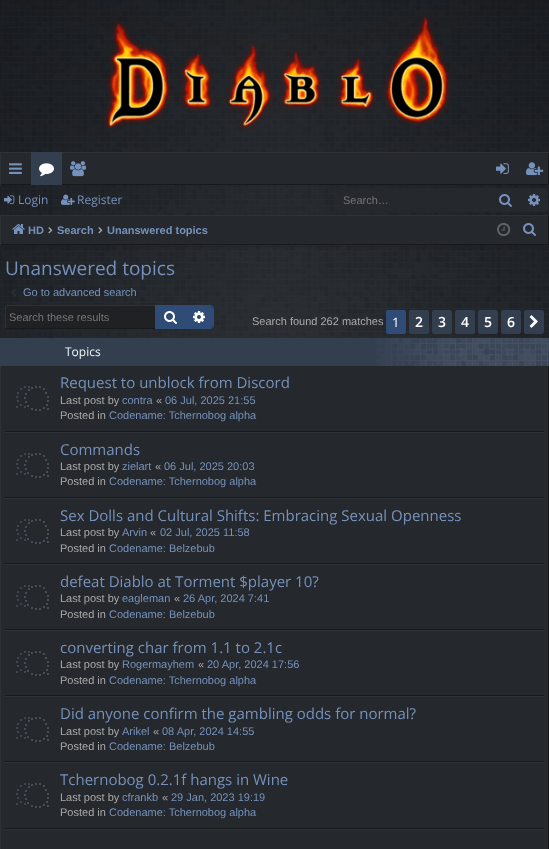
<svg xmlns="http://www.w3.org/2000/svg" width="549" height="849" viewBox="0 0 549 849">
  <defs>
    <clipPath id="clip1"><rect x="0" y="152" width="549" height="33"/></clipPath>
  </defs>
  <rect width="100%" height="100%" fill="rgb(29,33,39)"/>
  <image x="0" y="0" width="549" height="338" href="pic1.png"/>
  <image x="103" y="15" width="348" height="115" href="pic2.png"/>
  <rect x="1" y="153" width="547" height="31" fill="rgb(37,40,44)"/>
  <g clip-path="url(#clip1)">
    <path d="M-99 53H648V284H-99ZM-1 151H548V184H-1Z" fill="rgb(23,25,27)" fill-rule="evenodd"/>
    <path d="M-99 53H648V284H-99ZM1 153H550V186H1Z" fill="rgb(46,50,55)" fill-rule="evenodd"/>
  </g>
  <image x="9" y="163" width="13" height="11" href="pic3.png"/>
  <rect x="31" y="152" width="31" height="33" fill="rgb(51,62,79)"/>
  <image x="39" y="163" width="15" height="14" href="pic4.png"/>
  <image x="70" y="161" width="17" height="16" href="pic5.png"/>
  <image x="496" y="163" width="13" height="11" href="pic6.png"/>
  <image x="526" y="162" width="18" height="14" href="pic7.png"/>
  <image x="4" y="195" width="11" height="9" href="pic8.png"/>
  <text x="18" y="204" font-family="Open Sans" font-size="12" fill="rgb(118,146,188)">Login</text>
  <image x="61" y="194" width="14" height="11" href="pic9.png"/>
  <text x="77" y="204" font-family="Open Sans" font-size="12" fill="rgb(118,146,188)">Register</text>
  <rect x="340" y="188" width="150" height="24" fill="rgb(37,40,44)"/>
  <text x="343" y="204" font-family="Liberation Sans" font-size="11" fill="rgb(117,117,118)">Search…</text>
  <rect x="490" y="188" width="30" height="24" fill="rgb(37,40,44)"/>
  <image x="499" y="194" width="13" height="13" href="pic10.png"/>
  <path d="M520 188H544C546 188 548 190 548 192V208C548 210 546 212 544 212H520Z" fill="rgb(37,40,44)"/>
  <image x="528" y="194" width="12" height="12" href="pic11.png"/>
  <rect x="5" y="225" width="539" height="20" fill="rgba(0,0,0,0.2)" filter="blur(2.5px)"/>
  <rect x="1" y="216" width="547" height="28" fill="rgb(37,40,44)"/>
  <rect x="0" y="215" width="549" height="1" fill="rgb(46,50,55)"/>
  <rect x="548" y="215" width="1" height="30" fill="rgb(23,25,27)"/>
  <rect x="0" y="244" width="549" height="1" fill="rgb(23,25,27)"/>
  <rect x="0" y="215" width="1" height="30" fill="rgb(46,50,55)"/>
  <image x="12" y="224" width="13" height="10" href="pic12.png"/>
  <text x="28" y="234" font-family="Liberation Sans" font-size="11" font-weight="bold" fill="rgb(118,146,188)">HD</text>
  <image x="48" y="227" width="5" height="7" href="pic13.png"/>
  <text x="57" y="234" font-family="Liberation Sans" font-size="11" font-weight="bold" fill="rgb(118,146,188)">Search</text>
  <image x="98" y="227" width="5" height="7" href="pic13.png"/>
  <text x="107" y="234" font-family="Liberation Sans" font-size="11" font-weight="bold" fill="rgb(118,146,188)">Unanswered topics</text>
  <image x="497" y="223" width="14" height="13" href="pic14.png"/>
  <image x="523" y="223" width="13" height="13" href="pic10.png"/>
  <text x="5" y="275" font-family="Open Sans" font-size="19" fill="rgb(118,146,188)">Unanswered topics</text>
  <image x="11" y="289" width="5" height="7" href="pic15.png"/>
  <text x="23" y="296" font-family="Liberation Sans" font-size="11" fill="rgb(118,146,188)">Go to advanced search</text>
  <path d="M7 306H155V328H7C6.5 328 6 327.5 6 327V307C6 306.5 6.5 306 7 306Z" fill="rgb(32,33,35)"/>
  <path d="M7 305L6 306H155V305Z" fill="rgb(46,50,55)"/>
  <path d="M155 329V328H6L7 329Z" fill="rgb(23,25,27)"/>
  <path d="M5 307V327C5 327.5 5 328 5.5 328.5L6.5 327.5L6 325V309L6.5 306.5L5.5 305.5Z" fill="rgb(46,50,55)"/>
  <text x="9" y="321" font-family="Liberation Sans" font-size="11" fill="rgb(117,117,118)">Search these results</text>
  <rect x="155" y="305" width="30" height="24" fill="rgb(46,76,117)"/>
  <image x="164" y="311" width="13" height="13" href="pic16.png"/>
  <path d="M185 306H210C211.5 306 213 307.5 213 309V325C213 326.5 211.5 328 210 328H185Z" fill="rgb(46,76,117)"/>
  <path d="M185 305H210C212 305 214 307 214 309V325C214 327 212 329 210 329H185ZM185 306H210C211.5 306 213 307.5 213 309V325C213 326.5 211.5 328 210 328H185Z" fill="rgb(46,76,117)" fill-rule="evenodd"/>
  <image x="193" y="311" width="12" height="12" href="pic17.png"/>
  <text x="252" y="325" font-family="Liberation Sans" font-size="11" fill="rgb(170,170,170)">Search found 262 matches</text>
  <rect x="386.5" y="310.5" width="19" height="23" rx="1.5" fill="rgb(46,76,117)" stroke="rgb(46,76,117)"/>
  <text x="392" y="327" font-family="Open Sans" font-size="13" fill="rgb(255,255,255)">1</text>
  <rect x="409.5" y="310.5" width="19" height="23" rx="1.5" fill="rgb(51,62,79)" stroke="rgb(51,62,79)"/>
  <text x="415" y="327" font-family="Open Sans" font-size="14" font-weight="600" fill="rgb(255,255,255)">2</text>
  <rect x="432.5" y="310.5" width="19" height="23" rx="1.5" fill="rgb(51,62,79)" stroke="rgb(51,62,79)"/>
  <text x="438" y="327" font-family="Open Sans" font-size="14" font-weight="600" fill="rgb(255,255,255)">3</text>
  <rect x="455.5" y="310.5" width="19" height="23" rx="1.5" fill="rgb(51,62,79)" stroke="rgb(51,62,79)"/>
  <text x="461" y="327" font-family="Open Sans" font-size="14" font-weight="600" fill="rgb(255,255,255)">4</text>
  <rect x="478.5" y="310.5" width="19" height="23" rx="1.5" fill="rgb(51,62,79)" stroke="rgb(51,62,79)"/>
  <text x="484" y="327" font-family="Open Sans" font-size="14" font-weight="600" fill="rgb(255,255,255)">5</text>
  <rect x="501.5" y="310.5" width="19" height="23" rx="1.5" fill="rgb(51,62,79)" stroke="rgb(51,62,79)"/>
  <text x="507" y="327" font-family="Open Sans" font-size="14" font-weight="600" fill="rgb(255,255,255)">6</text>
  <rect x="524.5" y="310.5" width="19" height="23" rx="1.5" fill="rgb(51,62,79)" stroke="rgb(51,62,79)"/>
  <image x="529" y="315" width="9" height="13" href="pic18.png"/>
  <rect x="1" y="366" width="547" height="483" fill="rgb(37,40,44)"/>
  <rect x="548" y="366" width="1" height="483" fill="rgb(23,25,27)"/>
  <rect x="0" y="366" width="1" height="483" fill="rgb(46,50,55)"/>
  <rect x="0" y="338" width="549" height="28" fill="rgb(51,62,79)"/>
  <image x="376" y="338" width="173" height="28" href="pic19.png"/>
  <text x="65" y="356" font-family="Open Sans" font-size="12" fill="rgb(243,246,249)">Topics</text>
  <rect x="5" y="431" width="539" height="1" fill="rgb(23,25,27)"/>
  <image x="16" y="386" width="33" height="25" href="pic20.png"/>
  <text x="60" y="388" font-family="Open Sans" font-size="15" fill="rgb(118,146,188)">Request to unblock from Discord</text>
  <text x="60" y="404" font-family="Liberation Sans" font-size="11" fill="rgb(170,170,170)">Last post by</text>
  <text x="122" y="404" font-family="Liberation Sans" font-size="11" fill="rgb(118,146,188)">contra</text>
  <text x="156" y="404" font-family="Liberation Sans" font-size="11" fill="rgb(170,170,170)">«</text>
  <text x="165" y="404" font-family="Liberation Sans" font-size="11" fill="rgb(118,146,188)">06 Jul, 2025 21:55</text>
  <text x="60" y="419" font-family="Liberation Sans" font-size="11" fill="rgb(170,170,170)">Posted in</text>
  <text x="109" y="419" font-family="Liberation Sans" font-size="11" fill="rgb(118,146,188)">Codename: Tchernobog alpha</text>
  <rect x="5" y="432" width="539" height="1" fill="rgb(46,50,55)"/>
  <rect x="5" y="497" width="539" height="1" fill="rgb(23,25,27)"/>
  <image x="16" y="453" width="33" height="25" href="pic20.png"/>
  <text x="60" y="455" font-family="Open Sans" font-size="15" fill="rgb(118,146,188)">Commands</text>
  <text x="60" y="470" font-family="Liberation Sans" font-size="11" fill="rgb(170,170,170)">Last post by</text>
  <text x="122" y="470" font-family="Liberation Sans" font-size="11" fill="rgb(118,146,188)">zielart</text>
  <text x="155" y="470" font-family="Liberation Sans" font-size="11" fill="rgb(170,170,170)">«</text>
  <text x="164" y="470" font-family="Liberation Sans" font-size="11" fill="rgb(118,146,188)">06 Jul, 2025 20:03</text>
  <text x="60" y="485" font-family="Liberation Sans" font-size="11" fill="rgb(170,170,170)">Posted in</text>
  <text x="109" y="485" font-family="Liberation Sans" font-size="11" fill="rgb(118,146,188)">Codename: Tchernobog alpha</text>
  <rect x="5" y="498" width="539" height="1" fill="rgb(46,50,55)"/>
  <rect x="5" y="563" width="539" height="1" fill="rgb(23,25,27)"/>
  <image x="16" y="519" width="33" height="25" href="pic20.png"/>
  <text x="60" y="521" font-family="Open Sans" font-size="15" fill="rgb(118,146,188)">Sex Dolls and Cultural Shifts: Embracing Sexual Openness</text>
  <text x="60" y="536" font-family="Liberation Sans" font-size="11" fill="rgb(170,170,170)">Last post by</text>
  <text x="122" y="536" font-family="Liberation Sans" font-size="11" fill="rgb(118,146,188)">Arvin</text>
  <text x="150" y="536" font-family="Liberation Sans" font-size="11" fill="rgb(170,170,170)">«</text>
  <text x="160" y="536" font-family="Liberation Sans" font-size="11" fill="rgb(118,146,188)">02 Jul, 2025 11:58</text>
  <text x="60" y="552" font-family="Liberation Sans" font-size="11" fill="rgb(170,170,170)">Posted in</text>
  <text x="109" y="552" font-family="Liberation Sans" font-size="11" fill="rgb(118,146,188)">Codename: Belzebub</text>
  <rect x="5" y="564" width="539" height="1" fill="rgb(46,50,55)"/>
  <rect x="5" y="629" width="539" height="1" fill="rgb(23,25,27)"/>
  <image x="16" y="585" width="33" height="25" href="pic20.png"/>
  <text x="60" y="587" font-family="Open Sans" font-size="15" fill="rgb(118,146,188)">defeat Diablo at Torment $player 10?</text>
  <text x="60" y="602" font-family="Liberation Sans" font-size="11" fill="rgb(170,170,170)">Last post by</text>
  <text x="122" y="602" font-family="Liberation Sans" font-size="11" fill="rgb(118,146,188)">eagleman</text>
  <text x="174" y="602" font-family="Liberation Sans" font-size="11" fill="rgb(170,170,170)">«</text>
  <text x="183" y="602" font-family="Liberation Sans" font-size="11" fill="rgb(118,146,188)">26 Apr, 2024 7:41</text>
  <text x="60" y="618" font-family="Liberation Sans" font-size="11" fill="rgb(170,170,170)">Posted in</text>
  <text x="109" y="618" font-family="Liberation Sans" font-size="11" fill="rgb(118,146,188)">Codename: Belzebub</text>
  <rect x="5" y="630" width="539" height="1" fill="rgb(46,50,55)"/>
  <rect x="5" y="695" width="539" height="1" fill="rgb(23,25,27)"/>
  <image x="16" y="651" width="33" height="25" href="pic20.png"/>
  <text x="60" y="653" font-family="Open Sans" font-size="15" fill="rgb(118,146,188)">converting char from 1.1 to 2.1c</text>
  <text x="60" y="668" font-family="Liberation Sans" font-size="11" fill="rgb(170,170,170)">Last post by</text>
  <text x="122" y="668" font-family="Liberation Sans" font-size="11" fill="rgb(118,146,188)">Rogermayhem</text>
  <text x="198" y="668" font-family="Liberation Sans" font-size="11" fill="rgb(170,170,170)">«</text>
  <text x="207" y="668" font-family="Liberation Sans" font-size="11" fill="rgb(118,146,188)">20 Apr, 2024 17:56</text>
  <text x="60" y="684" font-family="Liberation Sans" font-size="11" fill="rgb(170,170,170)">Posted in</text>
  <text x="109" y="684" font-family="Liberation Sans" font-size="11" fill="rgb(118,146,188)">Codename: Tchernobog alpha</text>
  <rect x="5" y="696" width="539" height="1" fill="rgb(46,50,55)"/>
  <rect x="5" y="761" width="539" height="1" fill="rgb(23,25,27)"/>
  <image x="16" y="717" width="33" height="25" href="pic20.png"/>
  <text x="60" y="719" font-family="Open Sans" font-size="15" fill="rgb(118,146,188)">Did anyone confirm the gambling odds for normal?</text>
  <text x="60" y="735" font-family="Liberation Sans" font-size="11" fill="rgb(170,170,170)">Last post by</text>
  <text x="122" y="735" font-family="Liberation Sans" font-size="11" fill="rgb(118,146,188)">Arikel</text>
  <text x="153" y="735" font-family="Liberation Sans" font-size="11" fill="rgb(170,170,170)">«</text>
  <text x="162" y="735" font-family="Liberation Sans" font-size="11" fill="rgb(118,146,188)">08 Apr, 2024 14:55</text>
  <text x="60" y="750" font-family="Liberation Sans" font-size="11" fill="rgb(170,170,170)">Posted in</text>
  <text x="109" y="750" font-family="Liberation Sans" font-size="11" fill="rgb(118,146,188)">Codename: Belzebub</text>
  <rect x="5" y="762" width="539" height="1" fill="rgb(46,50,55)"/>
  <rect x="5" y="828" width="539" height="1" fill="rgb(23,25,27)"/>
  <image x="16" y="783" width="33" height="25" href="pic20.png"/>
  <text x="60" y="785" font-family="Open Sans" font-size="15" fill="rgb(118,146,188)">Tchernobog 0.2.1f hangs in Wine</text>
  <text x="60" y="801" font-family="Liberation Sans" font-size="11" fill="rgb(170,170,170)">Last post by</text>
  <text x="122" y="801" font-family="Liberation Sans" font-size="11" fill="rgb(118,146,188)">cfrankb</text>
  <text x="162" y="801" font-family="Liberation Sans" font-size="11" fill="rgb(170,170,170)">«</text>
  <text x="171" y="801" font-family="Liberation Sans" font-size="11" fill="rgb(118,146,188)">29 Jan, 2023 19:19</text>
  <text x="60" y="816" font-family="Liberation Sans" font-size="11" fill="rgb(170,170,170)">Posted in</text>
  <text x="109" y="816" font-family="Liberation Sans" font-size="11" fill="rgb(118,146,188)">Codename: Tchernobog alpha</text>
  <rect x="5" y="829" width="539" height="1" fill="rgb(46,50,55)"/>
</svg>
